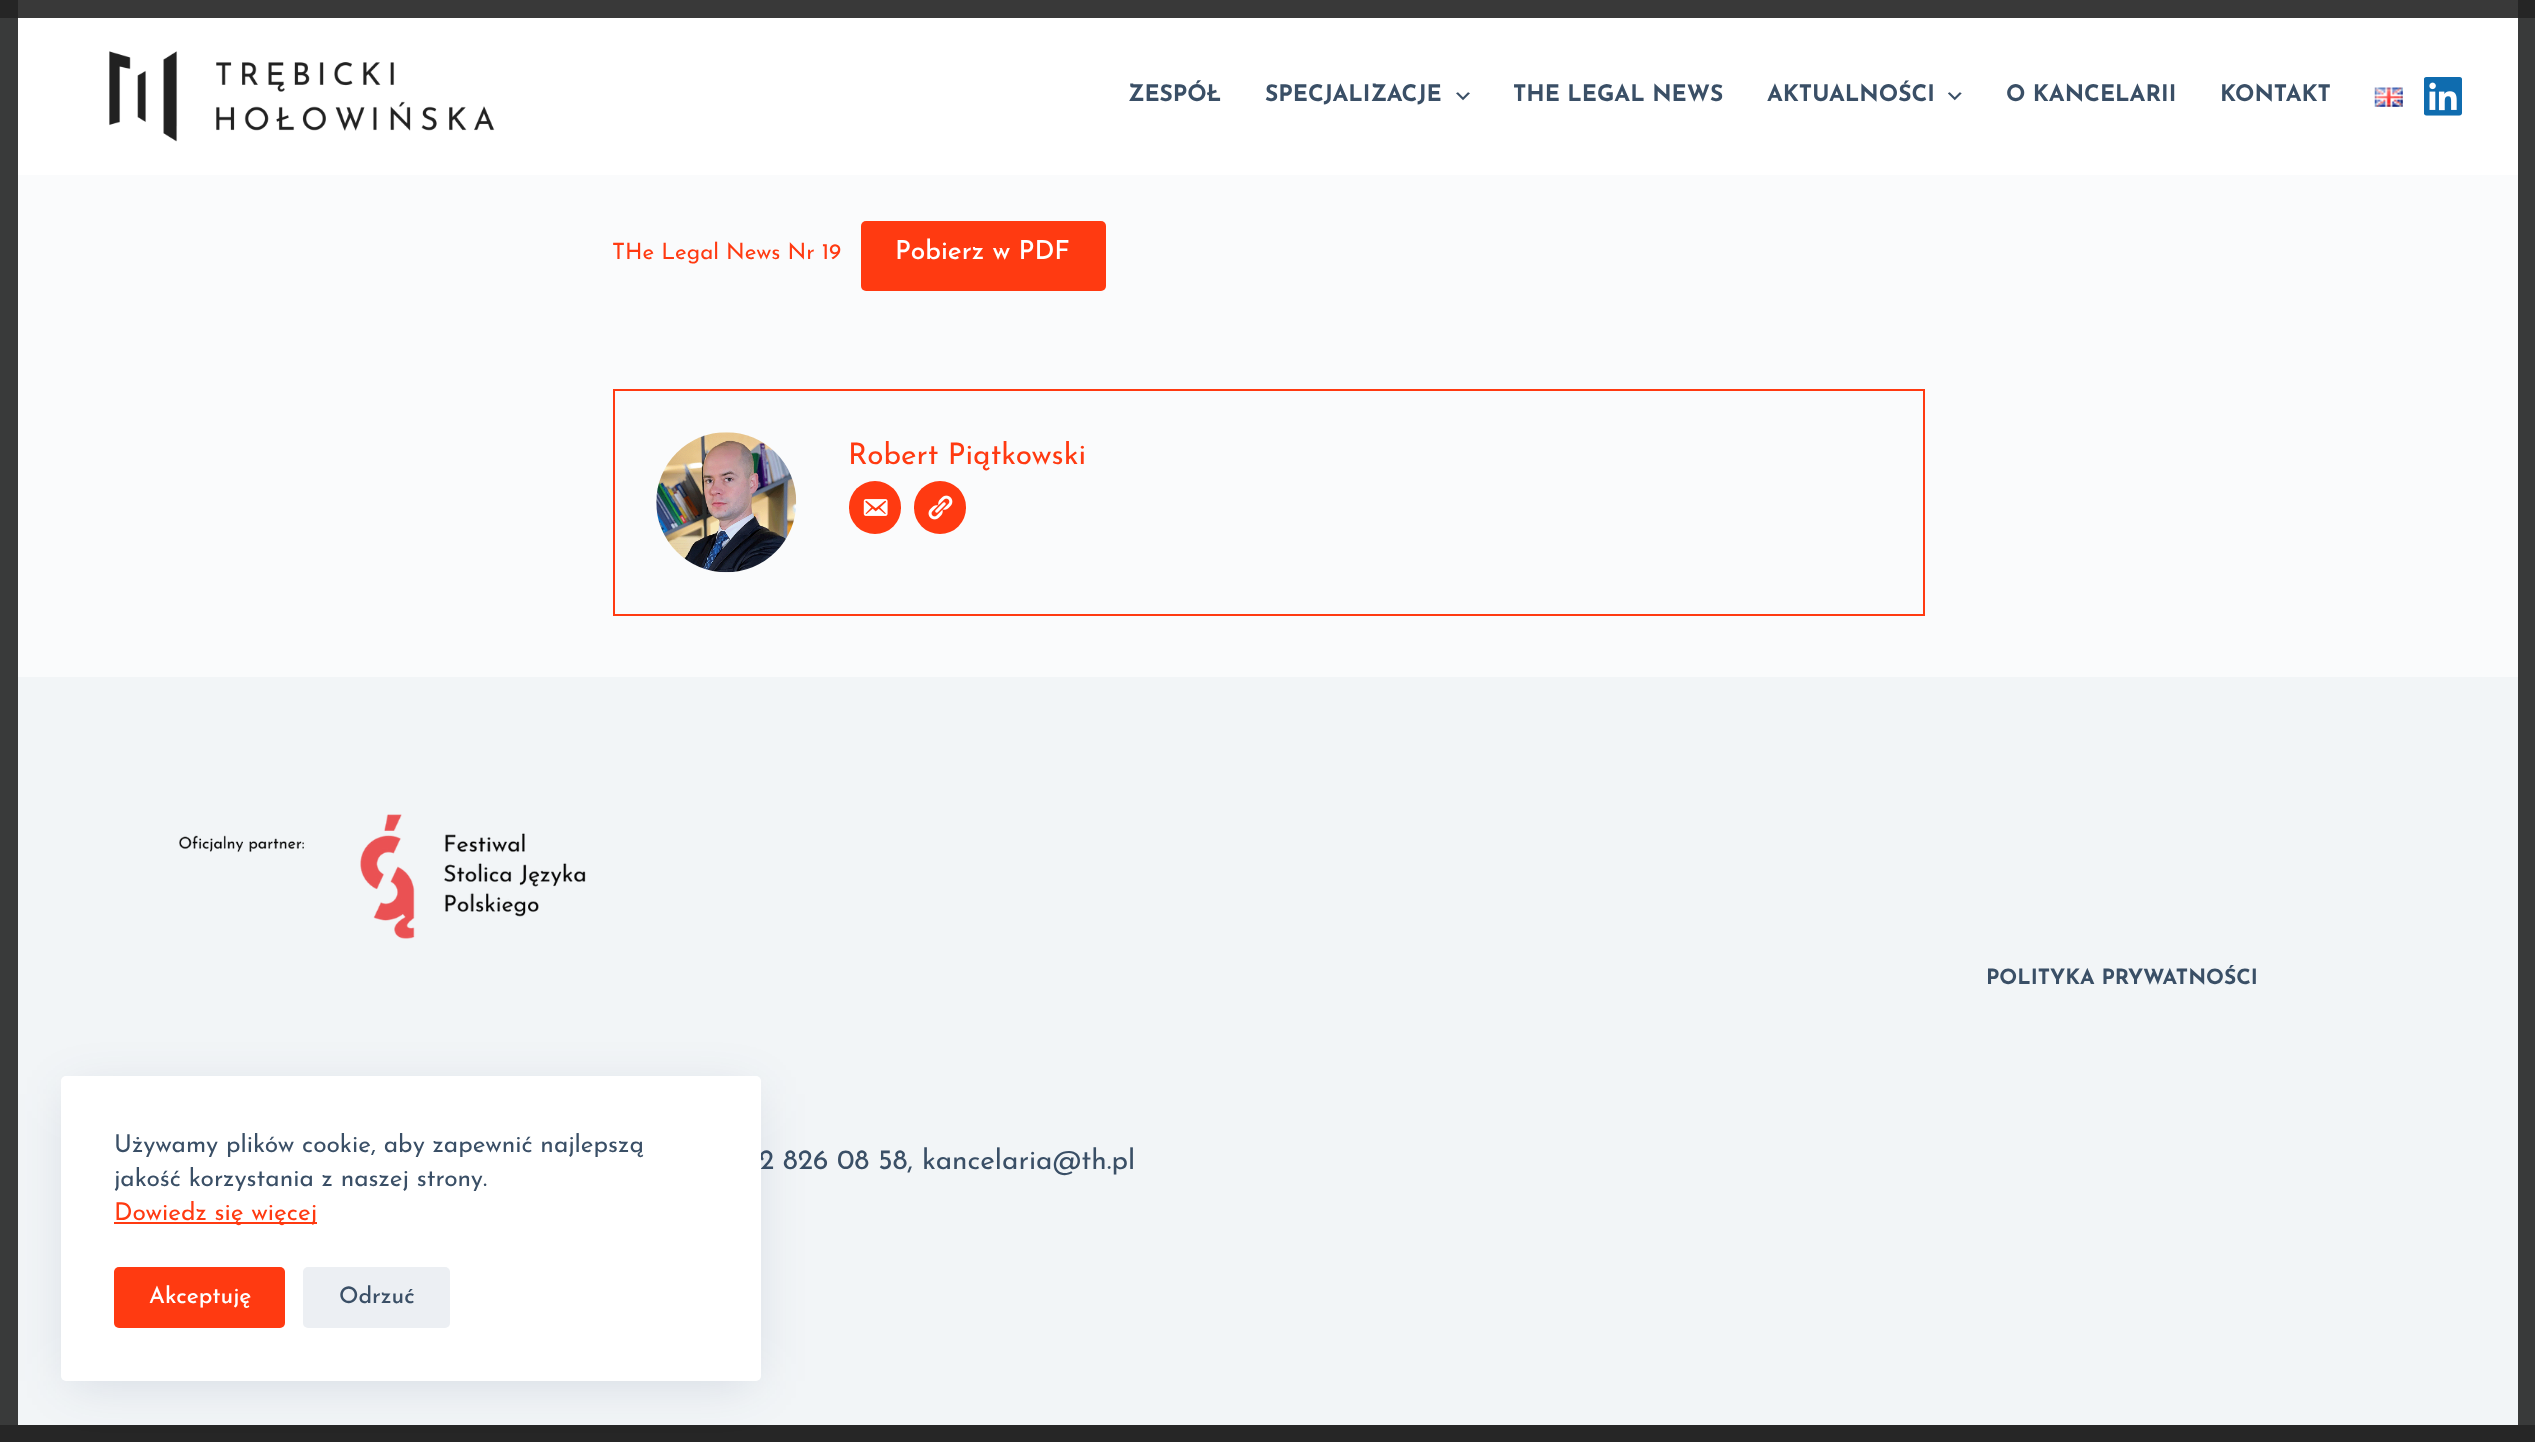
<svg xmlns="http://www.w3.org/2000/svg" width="2535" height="1442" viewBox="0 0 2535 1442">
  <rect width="100%" height="100%" fill="rgb(250,251,252)"/>
  <rect x="9" y="-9" width="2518" height="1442" fill="none" stroke="rgb(57,58,58)" stroke-width="18"/>
  <rect x="0" y="0" width="2535" height="18" fill="rgba(36,36,36,0.9)"/>
  <rect x="18" y="18" width="2500" height="157" fill="rgb(255,255,255)"/>
  <image x="109" y="51" width="386" height="91" href="pic1.png"/>
  <g font-family="Josefin Sans" font-size="22.75" font-weight="bold" fill="rgb(58,79,102)">
    <text x="1128" y="101">ZESPÓŁ</text>
    <text x="1265" y="101">SPECJALIZACJE</text>
  </g>
  <image x="1456" y="92" width="14" height="9" href="pic2.png"/>
  <g font-family="Josefin Sans" font-size="22.75" font-weight="bold" fill="rgb(58,79,102)">
    <text x="1513" y="101">THE LEGAL NEWS</text>
    <text x="1767" y="101">AKTUALNOŚCI</text>
  </g>
  <image x="1948" y="92" width="14" height="9" href="pic3.png"/>
  <g font-family="Josefin Sans" font-size="22.75" font-weight="bold" fill="rgb(58,79,102)">
    <text x="2006" y="101">O KANCELARII</text>
    <text x="2220" y="101">KONTAKT</text>
  </g>
  <image x="2374" y="87" width="29" height="20" href="pic4.png"/>
  <image x="2424" y="77" width="38" height="39" href="pic5.png"/>
  <text x="612" y="259" font-family="Josefin Sans" font-size="22.4" fill="rgb(255,58,17)">THe Legal News Nr 19</text>
  <rect x="861" y="221" width="245" height="70" rx="5" fill="rgb(255,58,17)"/>
  <text x="895" y="259" font-family="Josefin Sans" font-size="26.25" font-weight="500" fill="rgb(255,255,255)">Pobierz w PDF</text>
  <rect x="614" y="390" width="1310" height="225" fill="none" stroke="rgb(255,58,17)" stroke-width="2"/>
  <image x="656" y="432" width="141" height="141" href="pic6.png"/>
  <text x="848" y="464" font-family="Josefin Sans" font-size="29.75" fill="rgb(255,58,17)">Robert Piątkowski</text>
  <rect x="849" y="481" width="52" height="53" rx="26" fill="rgb(255,58,17)"/>
  <image x="863" y="499" width="25" height="17" href="pic7.png"/>
  <rect x="914" y="481" width="52" height="53" rx="26" fill="rgb(255,58,17)"/>
  <image x="928" y="495" width="25" height="25" href="pic8.png"/>
  <rect x="18" y="677" width="2500" height="748" fill="rgb(242,245,247)"/>
  <text x="1986" y="984" font-family="Josefin Sans" font-size="21" font-weight="bold" fill="rgb(58,79,102)">POLITYKA PRYWATNOŚCI</text>
  <image x="179" y="814" width="407" height="125" href="pic9.png"/>
  <text x="759" y="1169" font-family="Josefin Sans" font-size="28" fill="rgb(58,79,102)">2 826 08 58, kancelaria@th.pl</text>
  <rect x="0" y="1425" width="2535" height="17" fill="rgb(38,38,38)"/>
  <rect x="70" y="1094" width="683" height="287" fill="rgba(34,56,101,0.15)" filter="blur(26px)"/>
  <rect x="61" y="1076" width="700" height="305" rx="5" fill="rgb(255,255,255)"/>
  <g font-family="Josefin Sans" font-size="24.5" fill="rgb(58,79,102)">
    <text>
      <tspan x="114" y="1152">Używamy plików cookie, aby zapewnić najlepszą</tspan>
      <tspan x="114" y="1186">jakość korzystania z naszej strony.</tspan>
    </text>
  </g>
  <rect x="114" y="1222" width="203" height="2" fill="rgb(255,58,17)"/>
  <text x="114" y="1220" font-family="Josefin Sans" font-size="24.5" fill="rgb(255,58,17)">Dowiedz się więcej</text>
  <rect x="114" y="1267" width="171" height="61" rx="5" fill="rgb(255,58,17)"/>
  <text x="149" y="1303" font-family="Josefin Sans" font-size="22.75" font-weight="500" fill="rgb(255,255,255)">Akceptuję</text>
  <rect x="303" y="1267" width="147" height="61" rx="5" fill="rgb(236,239,243)"/>
  <text x="339" y="1303" font-family="Josefin Sans" font-size="22.75" font-weight="500" fill="rgb(58,79,102)">Odrzuć</text>
</svg>
